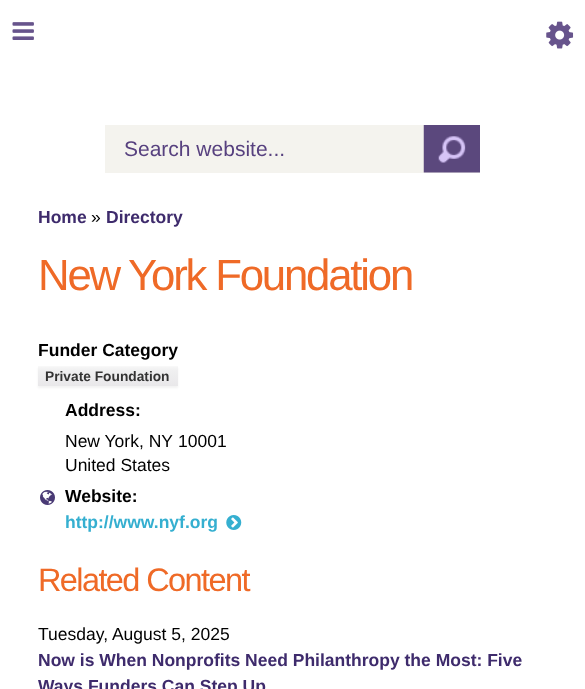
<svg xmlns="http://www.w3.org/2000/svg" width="585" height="689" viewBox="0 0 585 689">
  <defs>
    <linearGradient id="g1" gradientUnits="userSpaceOnUse" x1="108" y1="366" x2="108" y2="386"><stop offset="0" stop-color="rgb(247,247,247)"/><stop offset="0.25" stop-color="rgb(239,239,240)"/><stop offset="1" stop-color="rgb(233,232,234)"/></linearGradient>
  </defs>
  <rect width="100%" height="100%" fill="rgb(255,255,255)"/>
  <image x="12" y="22" width="22" height="18" href="pic1.png"/>
  <image x="546" y="21" width="28" height="28" href="pic2.png"/>
  <rect x="105" y="125" width="375" height="48" fill="rgb(244,243,238)"/>
  <text x="124" y="156" font-family="Liberation Sans" font-size="21" fill="rgb(87,65,127)">Search website...</text>
  <image x="423" y="125" width="57" height="48" href="pic3.png"/>
  <text x="38" y="223" font-family="Liberation Sans" font-size="17.5" font-weight="bold" fill="rgb(62,43,108)">Home</text>
  <text x="91" y="223" font-family="Liberation Sans" font-size="17.5" fill="rgb(0,0,0)">»</text>
  <text x="106" y="223" font-family="Liberation Sans" font-size="17.5" font-weight="bold" fill="rgb(62,43,108)">Directory</text>
  <text x="38" y="290" font-family="Liberation Sans" font-size="43.75" letter-spacing="-2.2" fill="rgb(239,106,39)">New York Foundation</text>
  <text x="38" y="356" font-family="Liberation Sans" font-size="17.5" font-weight="bold" fill="rgb(0,0,0)">Funder Category</text>
  <rect x="38" y="368" width="140" height="20" fill="rgba(0,0,0,0.05)" filter="blur(1px)"/>
  <rect x="38" y="367" width="140" height="19" fill="url(#g1)"/>
  <rect x="38" y="366" width="140" height="1" fill="rgb(248,248,248)"/>
  <text x="45" y="381" font-family="Liberation Sans" font-size="13.75" font-weight="bold" fill="rgb(51,51,51)">Private Foundation</text>
  <text x="65" y="416" font-family="Liberation Sans" font-size="17.5" font-weight="bold" fill="rgb(0,0,0)">Address:</text>
  <g font-family="Liberation Sans" font-size="17.5" fill="rgb(0,0,0)">
    <text x="65" y="447">New York, NY</text>
    <text x="178" y="447">10001</text>
    <text x="65" y="471">United States</text>
  </g>
  <image x="40" y="490" width="15" height="15" href="pic4.png"/>
  <text x="65" y="502" font-family="Liberation Sans" font-size="17.5" font-weight="bold" fill="rgb(0,0,0)">Website:</text>
  <text x="65" y="528" font-family="Liberation Sans" font-size="17.5" font-weight="bold" fill="rgb(53,175,208)">http://www.nyf.org</text>
  <image x="226" y="515" width="16" height="15" href="pic5.png"/>
  <text x="38" y="591" font-family="Liberation Sans" font-size="32.5" letter-spacing="-1.6" fill="rgb(239,106,39)">Related Content</text>
  <text x="38" y="640" font-family="Liberation Sans" font-size="17.5" fill="rgb(0,0,0)">Tuesday, August 5, 2025</text>
  <g font-family="Liberation Sans" font-size="17.5" font-weight="bold" fill="rgb(62,43,108)">
    <text>
      <tspan x="38" y="666">Now is When Nonprofits Need Philanthropy the Most: Five</tspan>
      <tspan x="38" y="692">Ways Funders Can Step Up</tspan>
    </text>
  </g>
</svg>
